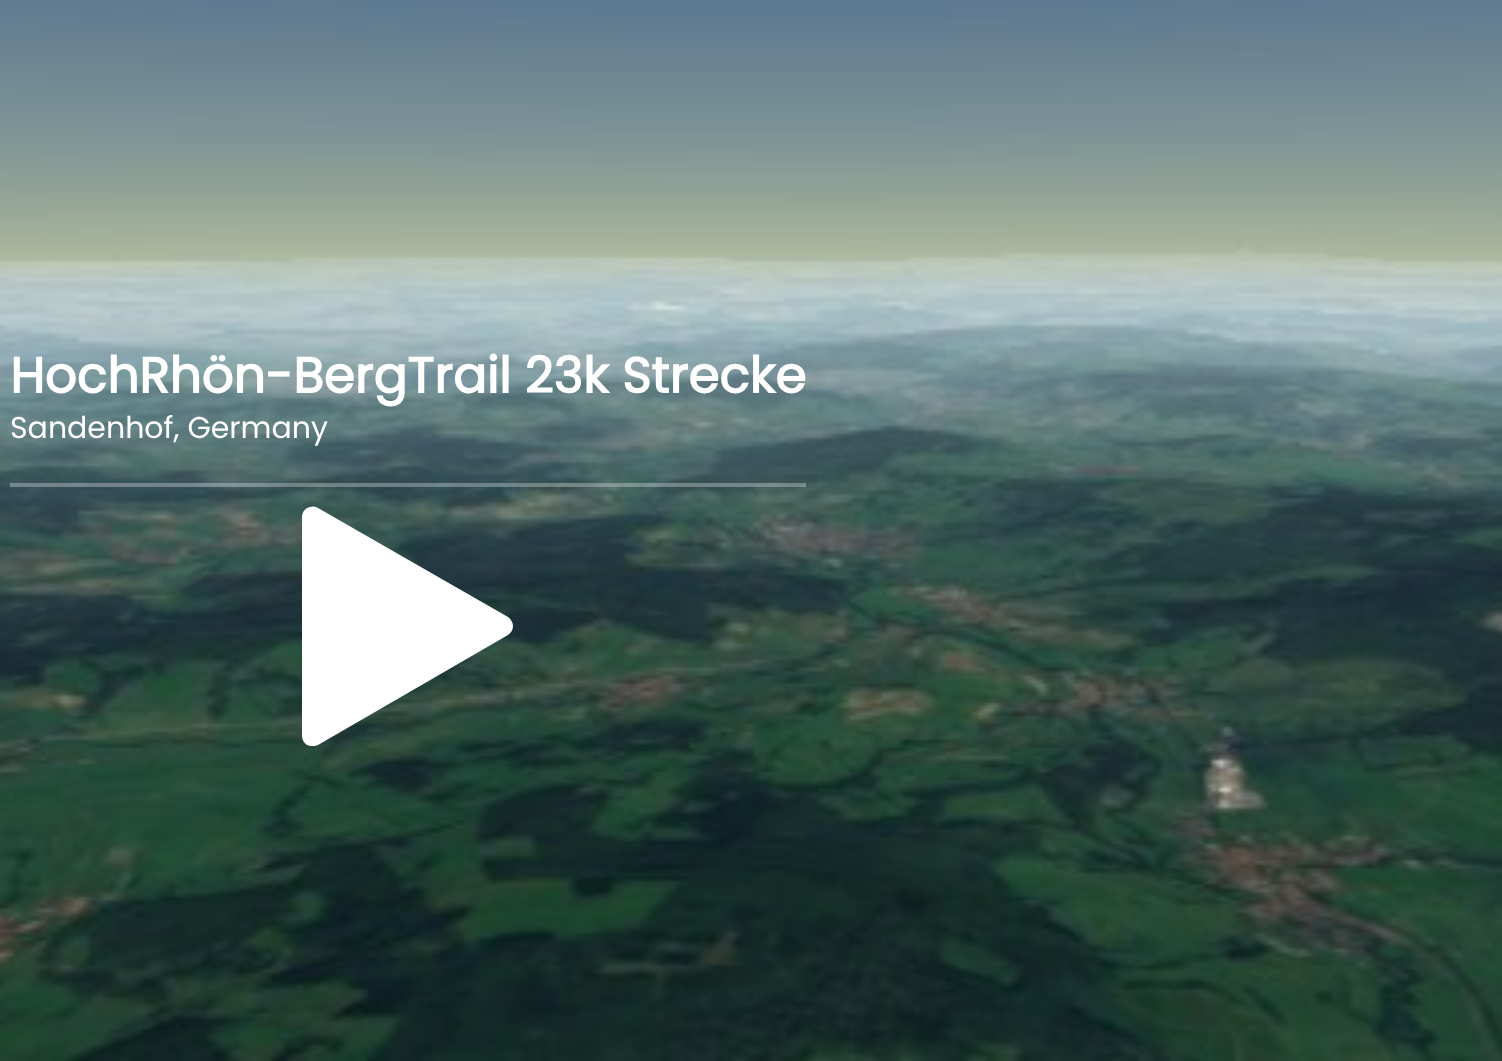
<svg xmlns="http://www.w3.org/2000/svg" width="1502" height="1061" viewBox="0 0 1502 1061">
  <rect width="100%" height="100%" fill="rgb(255,255,255)"/>
  <image x="0" y="0" width="1502" height="1061" href="pic1.png"/>
  <text x="10" y="393" font-family="Poppins" font-size="50" font-weight="bold" fill="rgb(255,255,255)">HochRhön-BergTrail 23k Strecke</text>
  <text x="10" y="438" font-family="Poppins" font-size="30" fill="rgb(255,255,255)">Sandenhof, Germany</text>
  <rect x="10" y="483" width="796" height="4" fill="rgba(255,255,255,0.3)"/>
  <path d="M508 617L318 508C315 506 311 506 307 508C304 510 302 513 302 517V736C302 740 304 743 307 745C309 746 311 746 313 746C314 746 316 746 318 745L508 635C511 633 513 630 513 626C513 623 511 619 508 617Z" fill="rgb(255,255,255)"/>
</svg>
